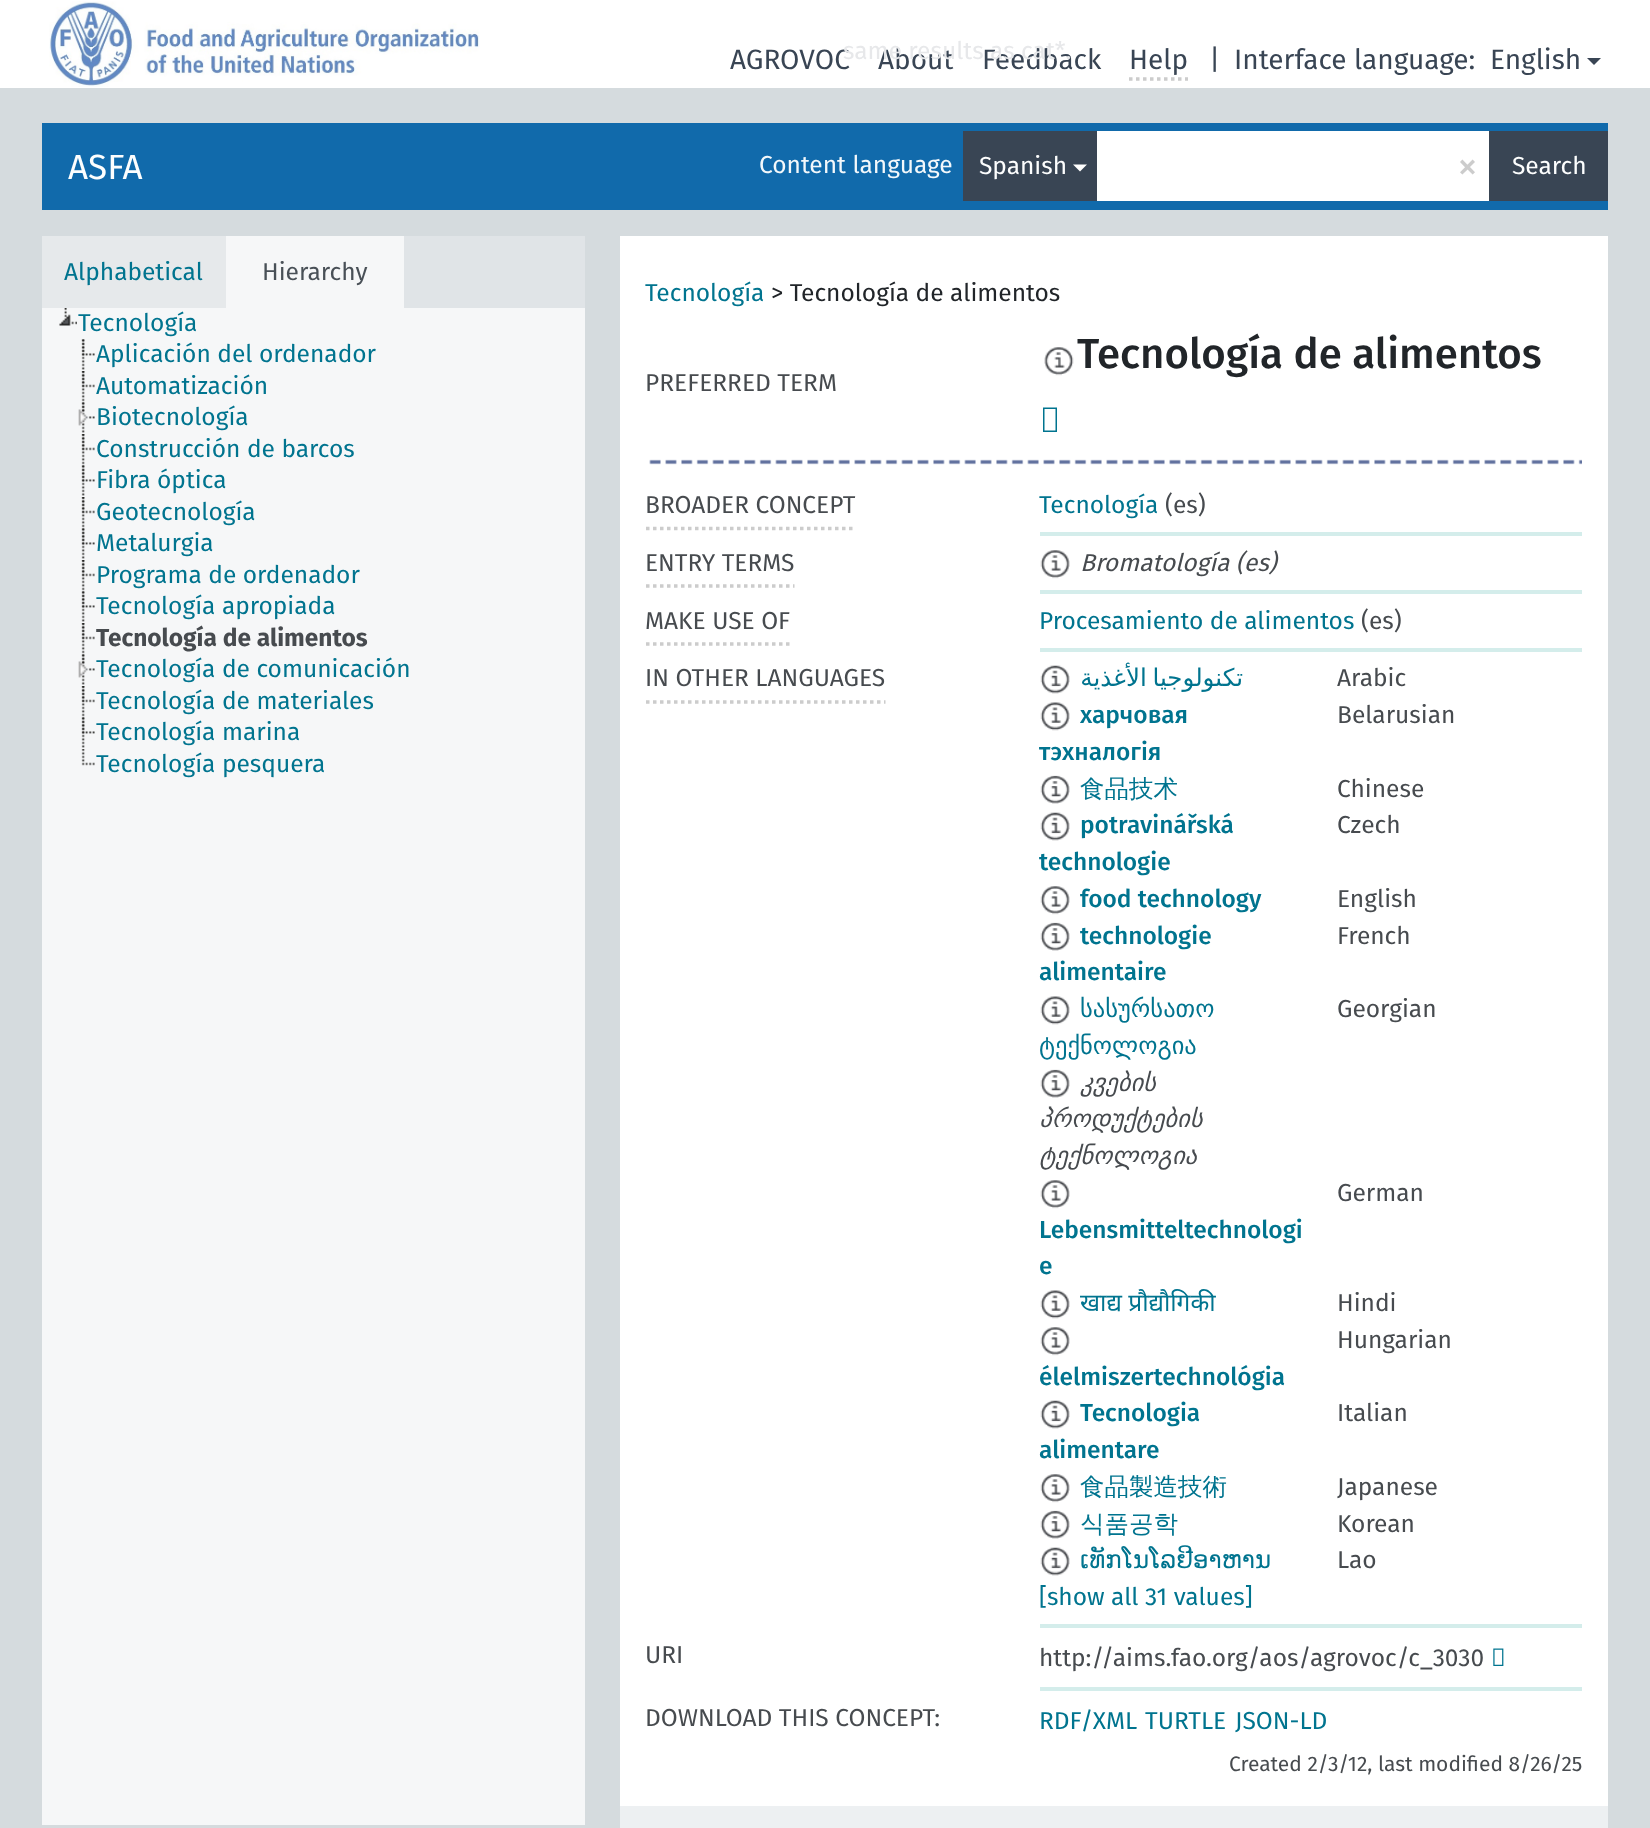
<svg xmlns="http://www.w3.org/2000/svg" width="1650" height="1828" viewBox="0 0 1650 1828">
  <rect width="100%" height="100%" fill="rgb(213,219,222)"/>
  <rect x="0" y="0" width="1650" height="88" fill="rgb(255,255,255)"/>
  <image x="49" y="1" width="431" height="86" href="pic1.png"/>
  <g font-family="Fira Sans" font-size="28" fill="rgb(57,69,84)">
    <text x="730" y="69">AGROVOC</text>
    <text x="878" y="69">About</text>
    <text x="982" y="69">Feedback</text>
  </g>
  <text x="843" y="59" font-family="Fira Sans" font-size="24.5" fill="rgb(231,232,234)">same results as cat*.</text>
  <text x="1129" y="69" font-family="Fira Sans" font-size="28" fill="rgb(57,69,84)">Help</text>
  <path d="M1129 79H1188" fill="none" stroke="rgb(204,204,204)" stroke-width="3.5" stroke-dasharray="3.5 3.5"/>
  <g font-family="Fira Sans" font-size="28" fill="rgb(57,69,84)">
    <text x="1209" y="69">|</text>
    <text x="1234" y="69">Interface language:</text>
    <text x="1490" y="69">English</text>
  </g>
  <path d="M1587 58H1601L1594 65Z" fill="rgb(57,69,84)"/>
  <rect x="42" y="123" width="1566" height="87" fill="rgb(17,106,171)"/>
  <text x="68" y="179" font-family="Fira Sans" font-size="35" fill="rgb(253,254,254)">ASFA</text>
  <text x="759" y="173" font-family="Fira Sans" font-size="24.5" fill="rgb(243,248,251)">Content language</text>
  <rect x="963" y="131" width="134" height="70" fill="rgb(57,69,84)"/>
  <text x="979" y="174" font-family="Fira Sans" font-size="24.5" fill="rgb(253,254,254)">Spanish</text>
  <path d="M1073 164.5H1087L1080 171.5Z" fill="rgb(255,255,255)"/>
  <rect x="1097" y="131" width="392" height="70" fill="rgb(255,255,255)"/>
  <text x="1457" y="180" font-family="Fira Sans" font-size="42" fill="rgb(204,204,204)">×</text>
  <rect x="1489" y="131" width="119" height="70" fill="rgb(57,69,84)"/>
  <text x="1512" y="174" font-family="Fira Sans" font-size="24.5" fill="rgb(253,254,254)">Search</text>
  <rect x="404" y="236" width="181" height="72" fill="rgb(224,228,231)"/>
  <rect x="42" y="236" width="184" height="72" fill="rgb(230,233,235)"/>
  <text x="64" y="280" font-family="Fira Sans" font-size="24.5" fill="rgb(0,116,143)">Alphabetical</text>
  <rect x="226" y="236" width="178" height="72" fill="rgb(246,247,248)"/>
  <text x="262" y="280" font-family="Fira Sans" font-size="24.5" fill="rgb(73,80,87)">Hierarchy</text>
  <rect x="42" y="308" width="543" height="1517" fill="rgb(246,247,248)"/>
  <image x="59" y="308" width="18" height="18" href="pic2.png"/>
  <text x="78" y="331" font-family="Fira Sans" font-size="24.5" fill="rgb(0,116,143)">Tecnología</text>
  <image x="81" y="339" width="4" height="31" href="pic3.png"/>
  <image x="81" y="339" width="14" height="17" href="pic4.png"/>
  <text x="96" y="362" font-family="Fira Sans" font-size="24.5" fill="rgb(0,116,143)">Aplicación del ordenador</text>
  <image x="81" y="371" width="4" height="31" href="pic5.png"/>
  <image x="81" y="371" width="14" height="17" href="pic6.png"/>
  <text x="96" y="394" font-family="Fira Sans" font-size="24.5" fill="rgb(0,116,143)">Automatización</text>
  <image x="81" y="402" width="4" height="31" href="pic3.png"/>
  <image x="78" y="402" width="17" height="24" href="pic7.png"/>
  <text x="96" y="425" font-family="Fira Sans" font-size="24.5" fill="rgb(0,116,143)">Biotecnología</text>
  <image x="81" y="434" width="4" height="31" href="pic5.png"/>
  <image x="81" y="434" width="14" height="17" href="pic6.png"/>
  <text x="96" y="457" font-family="Fira Sans" font-size="24.5" fill="rgb(0,116,143)">Construcción de barcos</text>
  <image x="81" y="465" width="4" height="31" href="pic3.png"/>
  <image x="81" y="465" width="14" height="17" href="pic4.png"/>
  <text x="96" y="488" font-family="Fira Sans" font-size="24.5" fill="rgb(0,116,143)">Fibra óptica</text>
  <image x="81" y="497" width="4" height="31" href="pic5.png"/>
  <image x="81" y="497" width="14" height="17" href="pic6.png"/>
  <text x="96" y="520" font-family="Fira Sans" font-size="24.5" fill="rgb(0,116,143)">Geotecnología</text>
  <image x="81" y="528" width="4" height="31" href="pic3.png"/>
  <image x="81" y="528" width="14" height="17" href="pic4.png"/>
  <text x="96" y="551" font-family="Fira Sans" font-size="24.5" fill="rgb(0,116,143)">Metalurgia</text>
  <image x="81" y="560" width="4" height="31" href="pic5.png"/>
  <image x="81" y="560" width="14" height="17" href="pic6.png"/>
  <text x="96" y="583" font-family="Fira Sans" font-size="24.5" fill="rgb(0,116,143)">Programa de ordenador</text>
  <image x="81" y="591" width="4" height="31" href="pic3.png"/>
  <image x="81" y="591" width="14" height="17" href="pic4.png"/>
  <text x="96" y="614" font-family="Fira Sans" font-size="24.5" fill="rgb(0,116,143)">Tecnología apropiada</text>
  <image x="81" y="623" width="4" height="31" href="pic5.png"/>
  <image x="81" y="623" width="14" height="17" href="pic6.png"/>
  <text x="96" y="646" font-family="Fira Sans" font-size="24.5" font-weight="bold" fill="rgb(71,75,79)">Tecnología de alimentos</text>
  <image x="81" y="654" width="4" height="31" href="pic3.png"/>
  <image x="78" y="654" width="17" height="24" href="pic7.png"/>
  <text x="96" y="677" font-family="Fira Sans" font-size="24.5" fill="rgb(0,116,143)">Tecnología de comunicación</text>
  <image x="81" y="686" width="4" height="31" href="pic5.png"/>
  <image x="81" y="686" width="14" height="17" href="pic6.png"/>
  <text x="96" y="709" font-family="Fira Sans" font-size="24.5" fill="rgb(0,116,143)">Tecnología de materiales</text>
  <image x="81" y="717" width="4" height="31" href="pic3.png"/>
  <image x="81" y="717" width="14" height="17" href="pic4.png"/>
  <text x="96" y="740" font-family="Fira Sans" font-size="24.5" fill="rgb(0,116,143)">Tecnología marina</text>
  <image x="81" y="749" width="14" height="17" href="pic8.png"/>
  <text x="96" y="772" font-family="Fira Sans" font-size="24.5" fill="rgb(0,116,143)">Tecnología pesquera</text>
  <rect x="620" y="236" width="988" height="1570" fill="rgb(255,255,255)"/>
  <text x="645" y="301" font-family="Fira Sans" font-size="24.5" fill="rgb(0,116,143)">Tecnología</text>
  <text x="771" y="301" font-family="Fira Sans" font-size="24.5" fill="rgb(33,37,41)">&gt; Tecnología de alimentos</text>
  <image x="1044" y="347" width="30" height="29" href="pic9.png"/>
  <text x="1077" y="368" font-family="Fira Sans" font-size="42" font-weight="500" fill="rgb(33,37,41)">Tecnología de alimentos</text>
  <path d="M1043 432V407.5H1057V432ZM1044.5 430.5H1055.5V409H1044.5Z" fill="rgb(0,116,143)"/>
  <text x="645" y="391" font-family="Fira Sans" font-size="24.5" fill="rgb(71,75,79)">PREFERRED TERM</text>
  <image x="649" y="459" width="933" height="6" href="pic10.png"/>
  <path d="M646 528.5H856" fill="none" stroke="rgb(204,204,204)" stroke-width="3.5" stroke-dasharray="3.5 3.5"/>
  <text x="645" y="513" font-family="Fira Sans" font-size="24.5" fill="rgb(71,75,79)">BROADER CONCEPT</text>
  <rect x="1040" y="532" width="542" height="4" fill="rgb(212,237,235)"/>
  <text x="1039" y="513" font-family="Fira Sans" font-size="24.5" fill="rgb(0,116,143)">Tecnología</text>
  <text x="1165" y="513" font-family="Fira Sans" font-size="24.5" fill="rgb(71,75,79)">(es)</text>
  <path d="M646 586H794.5" fill="none" stroke="rgb(204,204,204)" stroke-width="3.5" stroke-dasharray="3.5 3.5"/>
  <text x="645" y="571" font-family="Fira Sans" font-size="24.5" fill="rgb(71,75,79)">ENTRY TERMS</text>
  <rect x="1040" y="590" width="542" height="4" fill="rgb(212,237,235)"/>
  <image x="1040" y="550" width="30" height="29" href="pic11.png"/>
  <text x="1080" y="571" font-family="Fira Sans" font-size="24.5" font-style="italic" fill="rgb(71,75,79)">Bromatología (es)</text>
  <path d="M646 644H791" fill="none" stroke="rgb(204,204,204)" stroke-width="3.5" stroke-dasharray="3.5 3.5"/>
  <text x="645" y="629" font-family="Fira Sans" font-size="24.5" fill="rgb(71,75,79)">MAKE USE OF</text>
  <rect x="1040" y="648" width="542" height="4" fill="rgb(212,237,235)"/>
  <text x="1039" y="629" font-family="Fira Sans" font-size="24.5" fill="rgb(0,116,143)">Procesamiento de alimentos</text>
  <text x="1361" y="629" font-family="Fira Sans" font-size="24.5" fill="rgb(71,75,79)">(es)</text>
  <path d="M646 702H885.5" fill="none" stroke="rgb(204,204,204)" stroke-width="3.5" stroke-dasharray="3.5 3.5"/>
  <text x="645" y="686" font-family="Fira Sans" font-size="24.5" fill="rgb(71,75,79)">IN OTHER LANGUAGES</text>
  <rect x="1040" y="1624" width="542" height="4" fill="rgb(212,237,235)"/>
  <image x="1040" y="665" width="30" height="29" href="pic12.png"/>
  <text x="1243" y="686" word-spacing="-2" font-family="DejaVu Sans" font-size="24.5" direction="rtl" fill="rgb(0,116,143)">تكنولوجيا الأغذية</text>
  <text x="1337" y="686" font-family="Fira Sans" font-size="24.5" fill="rgb(71,75,79)">Arabic</text>
  <image x="1040" y="702" width="30" height="29" href="pic13.png"/>
  <g font-family="Fira Sans" font-size="24.5" font-weight="500" fill="rgb(0,116,143)">
    <text x="1080" y="723">харчовая</text>
    <text x="1039" y="760">тэхналогія</text>
  </g>
  <text x="1337" y="723" font-family="Fira Sans" font-size="24.5" fill="rgb(71,75,79)">Belarusian</text>
  <image x="1040" y="775" width="30" height="29" href="pic14.png"/>
  <text x="1080" y="797" font-family="WenQuanYi Zen Hei" font-size="24.5" font-weight="500" fill="rgb(0,116,143)">食品技术</text>
  <text x="1337" y="797" font-family="Fira Sans" font-size="24.5" fill="rgb(71,75,79)">Chinese</text>
  <image x="1040" y="812" width="30" height="29" href="pic12.png"/>
  <g font-family="Fira Sans" font-size="24.5" font-weight="500" fill="rgb(0,116,143)">
    <text x="1080" y="833">potravinářská</text>
    <text x="1039" y="870">technologie</text>
  </g>
  <text x="1337" y="833" font-family="Fira Sans" font-size="24.5" fill="rgb(71,75,79)">Czech</text>
  <image x="1040" y="886" width="30" height="29" href="pic11.png"/>
  <text x="1080" y="907" font-family="Fira Sans" font-size="24.5" font-weight="500" fill="rgb(0,116,143)">food technology</text>
  <text x="1337" y="907" font-family="Fira Sans" font-size="24.5" fill="rgb(71,75,79)">English</text>
  <image x="1040" y="922" width="30" height="29" href="pic14.png"/>
  <g font-family="Fira Sans" font-size="24.5" font-weight="500" fill="rgb(0,116,143)">
    <text x="1080" y="944">technologie</text>
    <text x="1039" y="980">alimentaire</text>
  </g>
  <text x="1337" y="944" font-family="Fira Sans" font-size="24.5" fill="rgb(71,75,79)">French</text>
  <image x="1040" y="996" width="30" height="29" href="pic13.png"/>
  <g font-family="DejaVu Sans" font-size="24.5" fill="rgb(0,116,143)">
    <text x="1080" y="1017">სასურსათო</text>
    <text x="1039" y="1054">ტექნოლოგია</text>
  </g>
  <text x="1337" y="1017" font-family="Fira Sans" font-size="24.5" fill="rgb(71,75,79)">Georgian</text>
  <image x="1040" y="1069" width="30" height="29" href="pic14.png"/>
  <g font-family="DejaVu Sans" font-size="24.5" font-style="italic" fill="rgb(71,75,79)">
    <text x="1080" y="1091">კვების</text>
    <text>
      <tspan x="1039" y="1127">პროდუქტების</tspan>
      <tspan x="1039" y="1164">ტექნოლოგია</tspan>
    </text>
  </g>
  <text x="1337" y="1201" font-family="Fira Sans" font-size="24.5" fill="rgb(71,75,79)">German</text>
  <image x="1040" y="1180" width="30" height="29" href="pic11.png"/>
  <g font-family="Fira Sans" font-size="24.5" font-weight="500" fill="rgb(0,116,143)">
    <text>
      <tspan x="1039" y="1238">Lebensmitteltechnologi</tspan>
      <tspan x="1039" y="1274">e</tspan>
    </text>
  </g>
  <image x="1040" y="1290" width="30" height="29" href="pic13.png"/>
  <text x="1080" y="1311" font-family="Noto Sans" font-size="24.5" fill="rgb(0,116,143)">खाद्य प्रौद्यौगिकी</text>
  <g font-family="Fira Sans" font-size="24.5" fill="rgb(71,75,79)">
    <text>
      <tspan x="1337" y="1311">Hindi</tspan>
      <tspan x="1337" y="1348">Hungarian</tspan>
    </text>
  </g>
  <image x="1040" y="1327" width="30" height="29" href="pic11.png"/>
  <text x="1039" y="1385" font-family="Fira Sans" font-size="24.5" font-weight="500" fill="rgb(0,116,143)">élelmiszertechnológia</text>
  <image x="1040" y="1400" width="30" height="29" href="pic12.png"/>
  <g font-family="Fira Sans" font-size="24.5" font-weight="500" fill="rgb(0,116,143)">
    <text x="1080" y="1421">Tecnologia</text>
    <text x="1039" y="1458">alimentare</text>
  </g>
  <text x="1337" y="1421" font-family="Fira Sans" font-size="24.5" fill="rgb(71,75,79)">Italian</text>
  <image x="1040" y="1474" width="30" height="29" href="pic11.png"/>
  <text x="1080" y="1495" font-family="WenQuanYi Zen Hei" font-size="24.5" font-weight="500" fill="rgb(0,116,143)">食品製造技術</text>
  <text x="1337" y="1495" font-family="Fira Sans" font-size="24.5" fill="rgb(71,75,79)">Japanese</text>
  <image x="1040" y="1510" width="30" height="29" href="pic14.png"/>
  <text x="1080" y="1532" font-family="WenQuanYi Zen Hei" font-size="24.5" font-weight="500" fill="rgb(0,116,143)">식품공학</text>
  <text x="1337" y="1532" font-family="Fira Sans" font-size="24.5" fill="rgb(71,75,79)">Korean</text>
  <image x="1040" y="1547" width="30" height="29" href="pic12.png"/>
  <text x="1080" y="1568" font-family="DejaVu Sans" font-size="24.5" fill="rgb(0,116,143)">ເທັກໂນໂລຢີອາຫານ</text>
  <text x="1337" y="1568" font-family="Fira Sans" font-size="24.5" fill="rgb(71,75,79)">Lao</text>
  <text x="1039" y="1605" font-family="Fira Sans" font-size="24.5" fill="rgb(0,116,143)">[show all 31 values]</text>
  <text x="645" y="1663" font-family="Fira Sans" font-size="24.5" fill="rgb(71,75,79)">URI</text>
  <rect x="1040" y="1687" width="542" height="4" fill="rgb(212,237,235)"/>
  <text x="1039" y="1666" font-family="Fira Sans" font-size="24.5" fill="rgb(71,75,79)">http://aims.fao.org/aos/agrovoc/c_3030</text>
  <image x="1493" y="1648" width="11" height="18" href="pic15.png"/>
  <text x="645" y="1726" font-family="Fira Sans" font-size="24.5" fill="rgb(71,75,79)">DOWNLOAD THIS CONCEPT:</text>
  <g font-family="Fira Sans" font-size="24.5" fill="rgb(0,116,143)">
    <text x="1039" y="1729">RDF/XML</text>
    <text x="1145" y="1729">TURTLE</text>
    <text x="1235" y="1729">JSON-LD</text>
  </g>
  <text x="1229" y="1771" font-family="Fira Sans" font-size="21" fill="rgb(71,75,79)">Created 2/3/12, last modified 8/26/25</text>
  <rect x="620" y="1806" width="988" height="22" fill="rgb(237,240,242)"/>
</svg>
